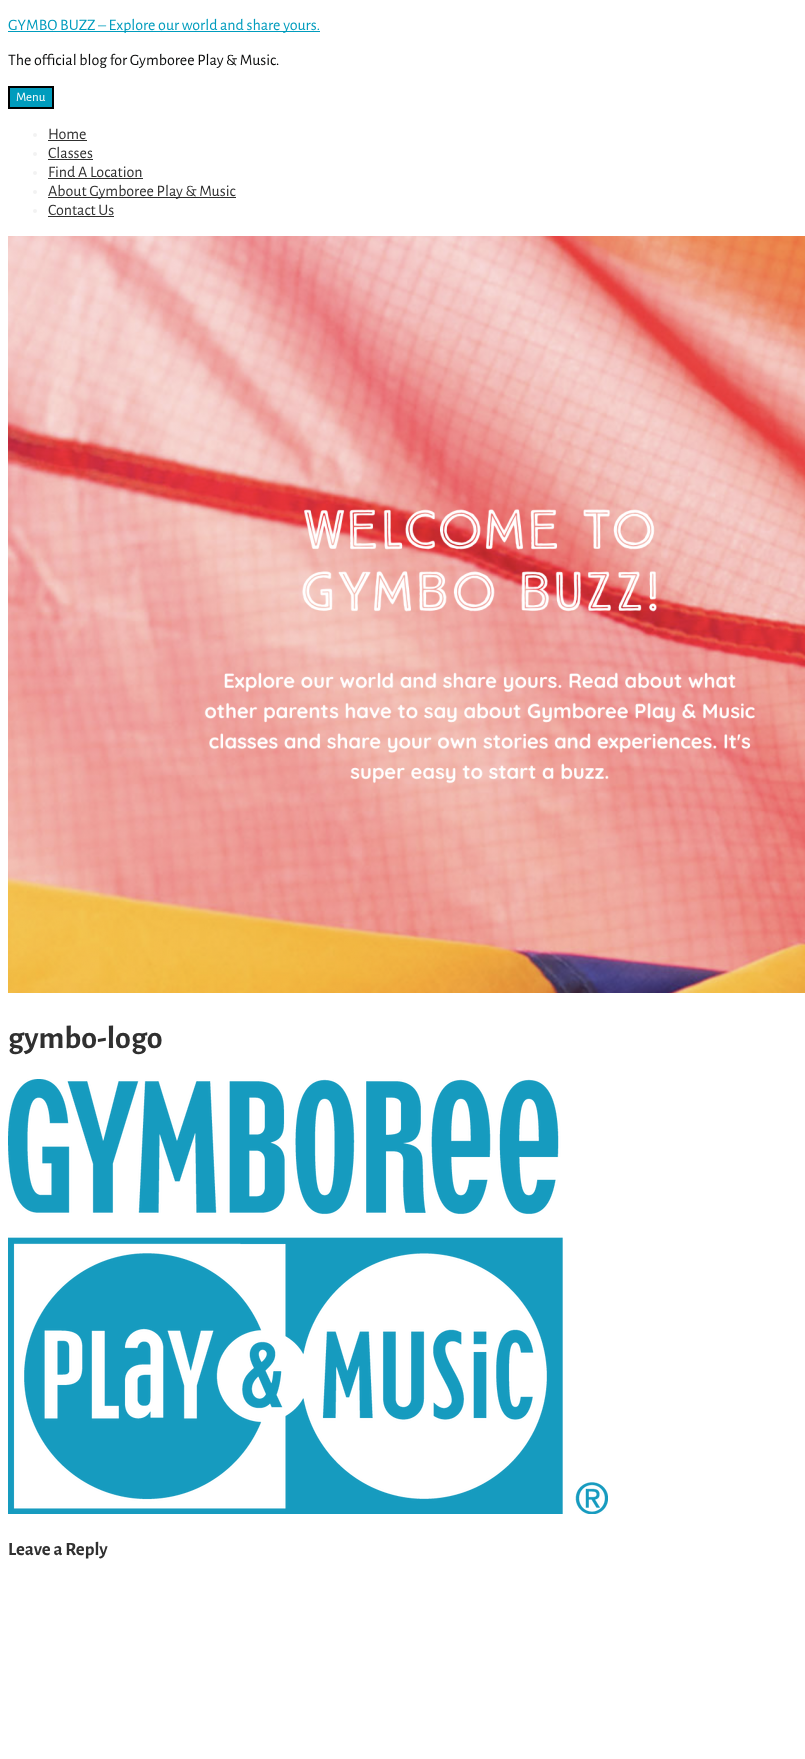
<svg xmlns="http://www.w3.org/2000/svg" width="805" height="1759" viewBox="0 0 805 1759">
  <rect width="100%" height="100%" fill="rgb(255,255,255)"/>
  <rect x="8" y="31" width="312" height="1" fill="rgb(0,156,189)"/>
  <text x="8" y="30" font-family="Alegreya Sans" font-size="16" fill="rgb(0,156,189)">GYMBO BUZZ – Explore our world and share yours.</text>
  <text x="8" y="65" font-family="Alegreya Sans" font-size="16" fill="rgb(9,10,10)">The official blog for Gymboree Play &amp; Music.</text>
  <rect x="9" y="87" width="44" height="21" fill="rgb(0,156,189)" stroke="rgb(0,0,0)" stroke-width="2"/>
  <text x="16" y="101" font-family="Alegreya Sans" font-size="13" fill="rgb(255,255,255)">Menu</text>
  <circle cx="35" cy="135" r="2" fill="rgb(242,242,242)"/>
  <text x="48" y="139" font-family="Alegreya Sans" font-size="16" fill="rgb(48,48,48)">Home</text>
  <rect x="48" y="140" width="39" height="1" fill="rgb(48,48,48)"/>
  <circle cx="35" cy="154" r="2" fill="rgb(242,242,242)"/>
  <text x="48" y="158" font-family="Alegreya Sans" font-size="16" fill="rgb(48,48,48)">Classes</text>
  <rect x="48" y="159" width="45" height="1" fill="rgb(48,48,48)"/>
  <circle cx="35" cy="173" r="2" fill="rgb(242,242,242)"/>
  <text x="48" y="177" font-family="Alegreya Sans" font-size="16" fill="rgb(48,48,48)">Find A Location</text>
  <rect x="48" y="178" width="95" height="1" fill="rgb(48,48,48)"/>
  <circle cx="35" cy="192" r="2" fill="rgb(242,242,242)"/>
  <rect x="48" y="197" width="188" height="1" fill="rgb(48,48,48)"/>
  <text x="48" y="196" font-family="Alegreya Sans" font-size="16" fill="rgb(48,48,48)">About Gymboree Play &amp; Music</text>
  <circle cx="35" cy="211" r="2" fill="rgb(242,242,242)"/>
  <text x="48" y="215" font-family="Alegreya Sans" font-size="16" fill="rgb(48,48,48)">Contact Us</text>
  <rect x="48" y="216" width="66" height="1" fill="rgb(48,48,48)"/>
  <image x="8" y="236" width="797" height="757" href="pic1.png"/>
  <text x="8" y="1048" font-family="Alegreya Sans" font-size="32" font-weight="bold" fill="rgb(48,48,48)">gymbo-logo</text>
  <image x="8" y="1079" width="600" height="435" href="pic2.png"/>
  <text x="8" y="1555" font-family="Alegreya Sans" font-size="18.75" font-weight="bold" fill="rgb(48,48,48)">Leave a Reply</text>
</svg>
